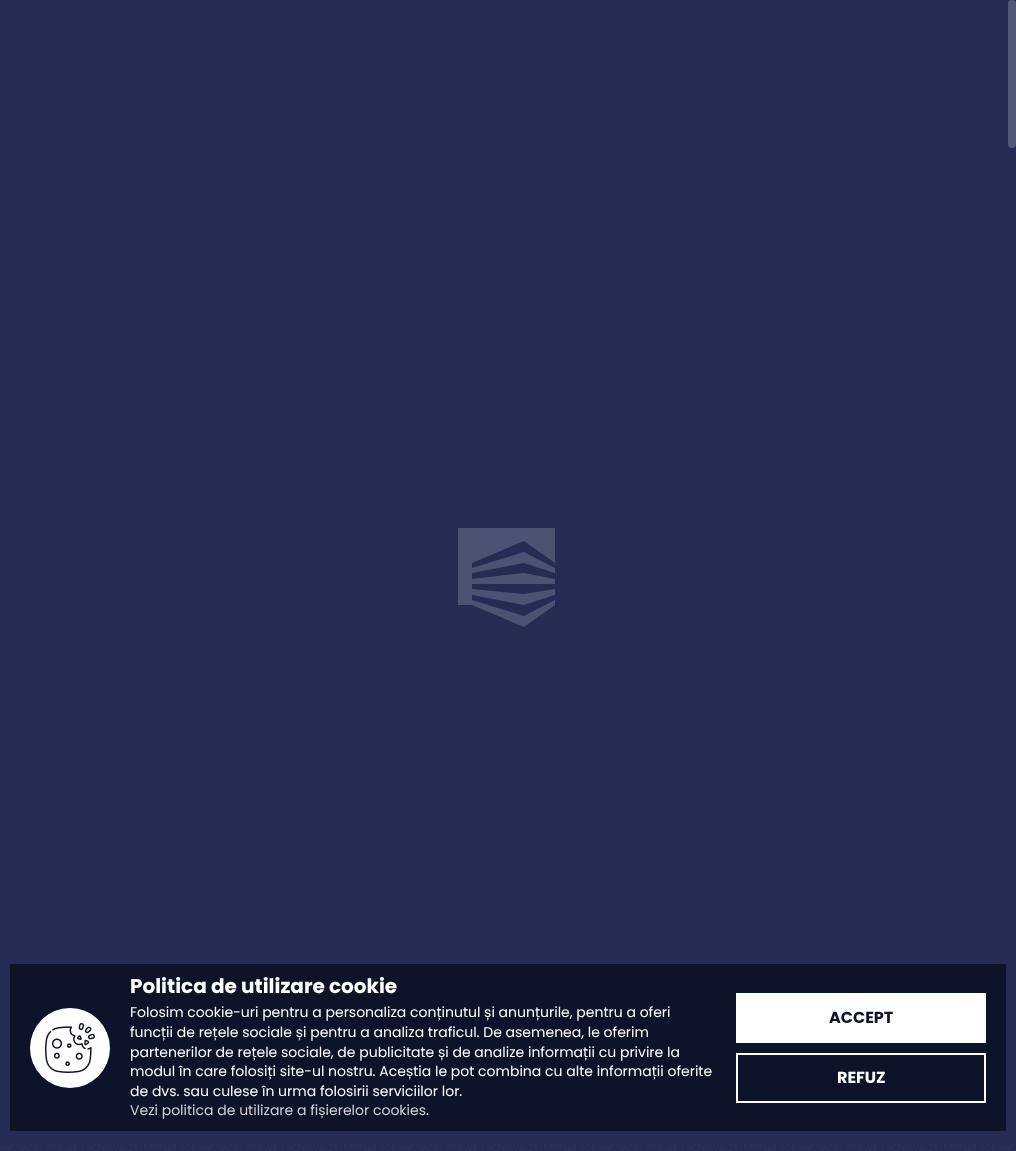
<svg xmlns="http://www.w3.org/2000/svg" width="1016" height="1151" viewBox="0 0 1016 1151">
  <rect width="100%" height="100%" fill="rgb(35,45,84)"/>
  <rect x="1008" y="0" width="8" height="148" rx="4" fill="rgb(82,89,118)"/>
  <path d="M458 528V605H472L524 627L555 605V600L524 616L472 600V595L524 605L555 595V589L524 594L472 589V584H555V579L524 573L472 579V573L524 563L555 573V568L524 552L472 568V563L524 541L555 563V528Z" fill="rgb(75,83,115)"/>
  <image x="0" y="1144" width="1016" height="7" href="pic1.png"/>
  <rect x="10" y="964" width="996" height="167" fill="rgb(13,19,40)"/>
  <circle cx="70" cy="1048" r="40" fill="rgb(255,255,255)"/>
  <image x="45" y="1023" width="50" height="50" href="pic2.png"/>
  <text x="130" y="993" font-family="Poppins" font-size="20" font-weight="bold" fill="rgb(255,255,255)">Politica de utilizare cookie</text>
  <g font-family="Poppins" font-size="14" fill="rgb(255,255,255)">
    <text>
      <tspan x="130" y="1017">Folosim cookie-uri pentru a personaliza conținutul și anunțurile, pentru a oferi</tspan>
      <tspan x="130" y="1037">funcții de rețele sociale și pentru a analiza traficul. De asemenea, le oferim</tspan>
      <tspan x="130" y="1057">partenerilor de rețele sociale, de publicitate și de analize informații cu privire la</tspan>
      <tspan x="130" y="1076">modul în care folosiți site-ul nostru. Aceștia le pot combina cu alte informații oferite</tspan>
      <tspan x="130" y="1096">de dvs. sau culese în urma folosirii serviciilor lor.</tspan>
    </text>
  </g>
  <text x="130" y="1115" font-family="Poppins" font-size="14" fill="rgb(207,208,212)">Vezi politica de utilizare a fișierelor cookies</text>
  <text x="426" y="1115" font-family="Poppins" font-size="14" fill="rgb(255,255,255)">.</text>
  <rect x="736" y="993" width="250" height="50" fill="rgb(255,255,255)"/>
  <text x="829" y="1023" font-family="Poppins" font-size="16" font-weight="bold" fill="rgb(13,19,40)">ACCEPT</text>
  <rect x="737" y="1054" width="248" height="48" fill="none" stroke="rgb(255,255,255)" stroke-width="2"/>
  <text x="837" y="1083" font-family="Poppins" font-size="16" font-weight="bold" fill="rgb(255,255,255)">REFUZ</text>
</svg>
